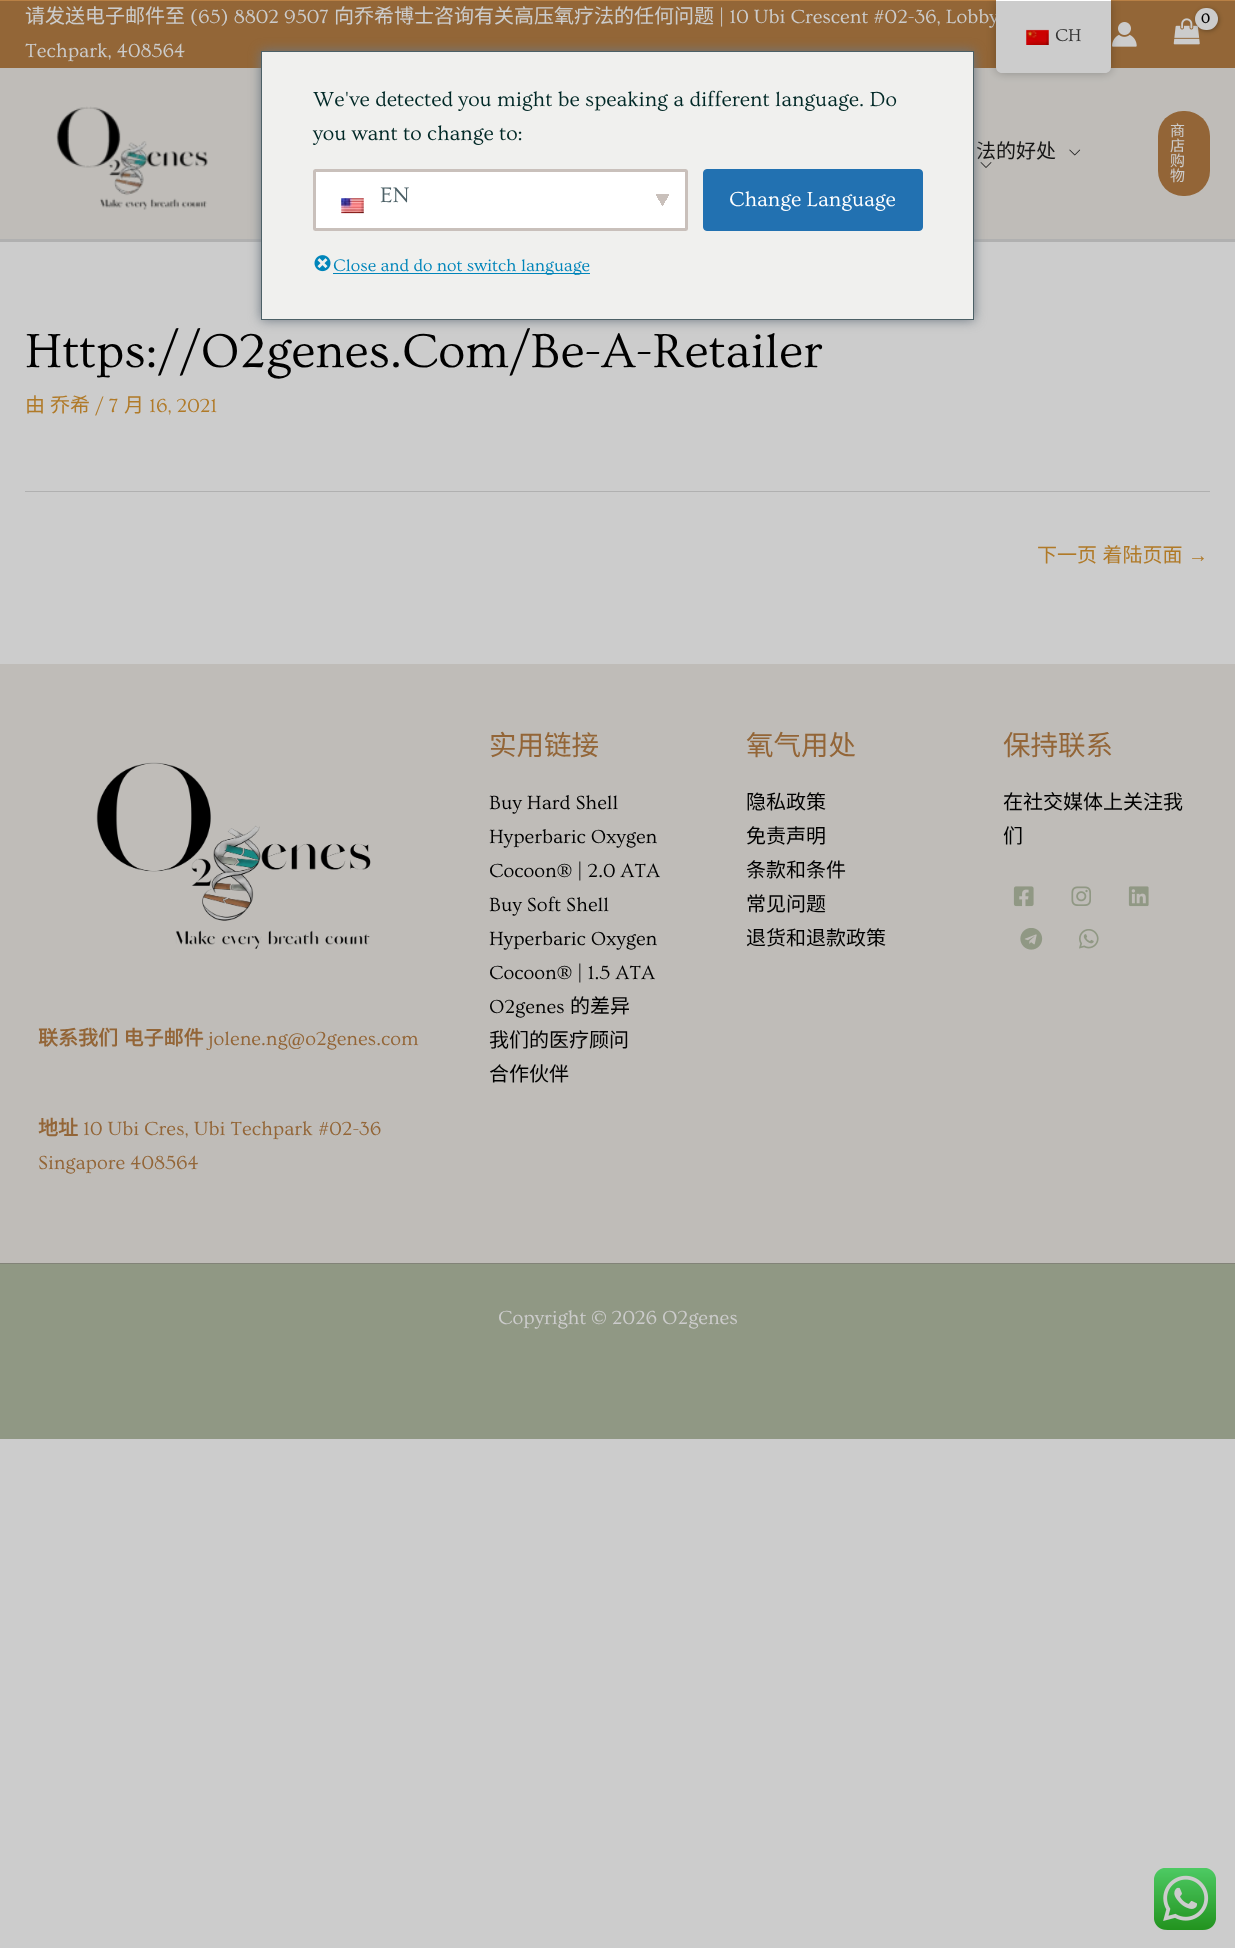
<svg xmlns="http://www.w3.org/2000/svg" width="1235" height="1948" viewBox="0 0 1235 1948">
  <defs>
    <linearGradient id="g1" gradientUnits="userSpaceOnUse" x1="660" y1="197" x2="672" y2="204"><stop offset="0.5" stop-color="rgb(201,192,187)"/><stop offset="0.5" stop-color="rgb(255,255,255)"/></linearGradient>
    <linearGradient id="g2" gradientUnits="userSpaceOnUse" x1="653" y1="204" x2="665" y2="197"><stop offset="0.5" stop-color="rgb(255,255,255)"/><stop offset="0.5" stop-color="rgb(201,192,187)"/></linearGradient>
  </defs>
  <rect width="100%" height="100%" fill="rgb(255,255,255)"/>
  <rect x="0" y="0" width="1235" height="68" fill="rgb(184,128,69)"/>
  <text x="25" y="23" font-family="Noto Sans CJK SC" font-size="20" fill="rgb(255,255,255)">请发送电子邮件至</text>
  <text x="190" y="23" font-family="Ovo" font-size="20" fill="rgb(255,255,255)">(65) 8802 9507</text>
  <text x="334" y="23" font-family="Noto Sans CJK SC" font-size="20" fill="rgb(255,255,255)">向乔希博士咨询有关高压氧疗法的任何问题</text>
  <g font-family="Ovo" font-size="20" fill="rgb(255,255,255)">
    <text x="719" y="23">| 10 Ubi Crescent #02-36, Lobby</text>
    <text x="25" y="57">Techpark, 408564</text>
  </g>
  <image x="1173" y="18" width="27" height="27" href="pic1.png"/>
  <rect x="1196" y="9" width="23" height="22" rx="11" fill="rgba(0,0,0,0.3)" filter="blur(2px)"/>
  <rect x="1195" y="8" width="23" height="22" rx="11" fill="rgb(255,255,255)"/>
  <text x="1201" y="23" font-family="Ovo" font-size="14" font-weight="bold" letter-spacing="-1" fill="rgb(0,0,0)">0</text>
  <image x="1112" y="22" width="25" height="25" href="pic2.png"/>
  <rect x="0" y="68" width="1235" height="171" fill="rgb(239,236,231)"/>
  <rect x="0" y="239" width="1235" height="3" fill="rgb(221,221,221)"/>
  <image x="56" y="106" width="152" height="104" href="pic3.png"/>
  <text x="976" y="158" font-family="Noto Sans CJK SC" font-size="20" fill="rgb(26,26,26)">法的好处</text>
  <image x="1069" y="149" width="12" height="7" href="pic4.png"/>
  <image x="980" y="162" width="12" height="6" href="pic5.png"/>
  <rect x="1158" y="111" width="52" height="85" rx="25" fill="rgb(184,127,69)"/>
  <g font-family="Noto Sans CJK SC" font-size="15" letter-spacing="2" fill="rgb(255,255,255)">
    <text>
      <tspan x="1170" y="136">商</tspan>
      <tspan x="1170" y="151">店</tspan>
      <tspan x="1170" y="166">购</tspan>
      <tspan x="1170" y="181">物</tspan>
    </text>
  </g>
  <text x="25" y="367" font-family="Ovo" font-size="50" fill="rgb(0,0,0)">Https://O2genes.Com/Be-A-Retailer</text>
  <g font-family="Noto Sans CJK SC" font-size="20" fill="rgb(221,153,51)">
    <text x="25" y="412">由</text>
    <text x="50" y="412">乔希</text>
  </g>
  <text x="95" y="412" font-family="Ovo" font-size="20" fill="rgb(221,153,51)">/ 7</text>
  <text x="124" y="412" font-family="Noto Sans CJK SC" font-size="20" fill="rgb(221,153,51)">月</text>
  <text x="149" y="412" font-family="Ovo" font-size="20" fill="rgb(221,153,51)">16, 2021</text>
  <rect x="25" y="491" width="1185" height="1" fill="rgb(221,221,221)"/>
  <text x="1037" y="562" word-spacing="1" font-family="Noto Sans CJK SC" font-size="20" fill="rgb(221,153,51)">下一页 着陆页面</text>
  <text x="1188" y="562" font-family="Liberation Serif" font-size="20" fill="rgb(221,153,51)">→</text>
  <rect x="0" y="664" width="1235" height="599" fill="rgb(239,236,231)"/>
  <text x="489" y="755" font-family="Noto Sans CJK SC" font-size="27.5" fill="rgb(184,127,69)">实用链接</text>
  <g font-family="Ovo" font-size="20" fill="rgb(0,0,0)">
    <text>
      <tspan x="489" y="809">Buy Hard Shell</tspan>
      <tspan x="489" y="843">Hyperbaric Oxygen</tspan>
      <tspan x="489" y="877">Cocoon® | 2.0 ATA</tspan>
      <tspan x="489" y="911">Buy Soft Shell</tspan>
      <tspan x="489" y="945">Hyperbaric Oxygen</tspan>
      <tspan x="489" y="979">Cocoon® | 1.5 ATA</tspan>
      <tspan x="489" y="1013">O2genes</tspan>
    </text>
  </g>
  <g font-family="Noto Sans CJK SC" font-size="20" fill="rgb(0,0,0)">
    <text x="570" y="1013">的差异</text>
    <text>
      <tspan x="489" y="1047">我们的医疗顾问</tspan>
      <tspan x="489" y="1081">合作伙伴</tspan>
    </text>
  </g>
  <text x="746" y="755" font-family="Noto Sans CJK SC" font-size="27.5" fill="rgb(184,127,69)">氧气用处</text>
  <g font-family="Noto Sans CJK SC" font-size="20" fill="rgb(0,0,0)">
    <text>
      <tspan x="746" y="809">隐私政策</tspan>
      <tspan x="746" y="843">免责声明</tspan>
      <tspan x="746" y="877">条款和条件</tspan>
      <tspan x="746" y="911">常见问题</tspan>
      <tspan x="746" y="945">退货和退款政策</tspan>
    </text>
  </g>
  <text x="1003" y="755" font-family="Noto Sans CJK SC" font-size="27.5" fill="rgb(184,127,69)">保持联系</text>
  <g font-family="Noto Sans CJK SC" font-size="20" fill="rgb(0,0,0)">
    <text>
      <tspan x="1003" y="809">在社交媒体上关注我</tspan>
      <tspan x="1003" y="843">们</tspan>
    </text>
  </g>
  <image x="1013" y="886" width="21" height="21" href="pic6.png"/>
  <image x="1071" y="886" width="20" height="20" href="pic7.png"/>
  <image x="1128" y="886" width="21" height="21" href="pic8.png"/>
  <image x="1020" y="928" width="23" height="22" href="pic9.png"/>
  <image x="1079" y="929" width="20" height="20" href="pic10.png"/>
  <image x="96" y="762" width="275" height="187" href="pic11.png"/>
  <text x="38" y="1045" word-spacing="1" font-family="Noto Sans CJK SC" font-size="20" font-weight="bold" fill="rgb(184,127,69)">联系我们 电子邮件</text>
  <text x="208" y="1045" font-family="Ovo" font-size="20" fill="rgb(184,127,69)">jolene.ng@o2genes.com</text>
  <text x="38" y="1135" font-family="Noto Sans CJK SC" font-size="20" font-weight="bold" fill="rgb(184,127,69)">地址</text>
  <g font-family="Ovo" font-size="20" fill="rgb(184,127,69)">
    <text x="83" y="1135">10 Ubi Cres, Ubi Techpark #02-36</text>
    <text x="38" y="1169">Singapore 408564</text>
  </g>
  <rect x="0" y="1264" width="1235" height="175" fill="rgb(181,190,165)"/>
  <rect x="0" y="1263" width="1235" height="1" fill="rgb(163,164,151)"/>
  <text x="498" y="1324" font-family="Ovo" font-size="20" fill="rgb(255,255,255)">Copyright © 2026 O2genes</text>
  <rect x="996" y="0" width="115" height="73" rx="6" fill="rgba(0,0,0,0.25)" filter="blur(5px)"/>
  <path d="M996 0H1111V67C1111 70.5 1108.5 73 1105 73H1002C998.5 73 996 70.5 996 67Z" fill="rgb(255,255,255)"/>
  <image x="1026" y="29" width="23" height="16" href="pic12.png"/>
  <text x="1055" y="41" font-family="Ovo" font-size="18" fill="rgb(64,64,64)">CH</text>
  <image x="1154" y="1868" width="62" height="62" href="pic15.png"/>
  <rect x="0" y="1" width="1235" height="1947" fill="rgba(0,0,0,0.2)"/>
  <rect x="261" y="51" width="713" height="269" fill="rgb(108,119,129)" filter="blur(6px)"/>
  <rect x="261.5" y="51.5" width="712" height="268" fill="rgb(240,240,238)" stroke="rgb(76,96,102)"/>
  <g font-family="Ovo" font-size="21.25" fill="rgb(0,40,38)">
    <text>
      <tspan x="313" y="106">We've detected you might be speaking a different language. Do</tspan>
      <tspan x="313" y="140">you want to change to:</tspan>
    </text>
  </g>
  <rect x="313" y="169" width="375" height="62" rx="2.5" fill="rgb(255,255,255)"/>
  <rect x="663" y="194" width="7" height="15" fill="url(#g1)"/>
  <rect x="655" y="194" width="8" height="15" fill="url(#g2)"/>
  <rect x="314.5" y="170.5" width="372" height="59" rx="1" fill="none" stroke="rgb(201,192,187)" stroke-width="3"/>
  <text x="380" y="202" font-family="Ovo" font-size="22" fill="rgb(76,96,102)">EN</text>
  <image x="341" y="198" width="23" height="16" href="pic13.png"/>
  <rect x="703.5" y="169.5" width="219" height="61" rx="3.5" fill="rgb(34,113,177)" stroke="rgb(34,113,177)"/>
  <text x="729" y="206" font-family="Ovo" font-size="21.25" fill="rgb(255,255,255)">Change Language</text>
  <image x="314" y="255" width="17" height="17" href="pic14.png"/>
  <rect x="333" y="273" width="257" height="1" fill="rgb(0,133,186)"/>
  <text x="333" y="271" font-family="Ovo" font-size="17.5" fill="rgb(0,133,186)">Close and do not switch language</text>
</svg>
